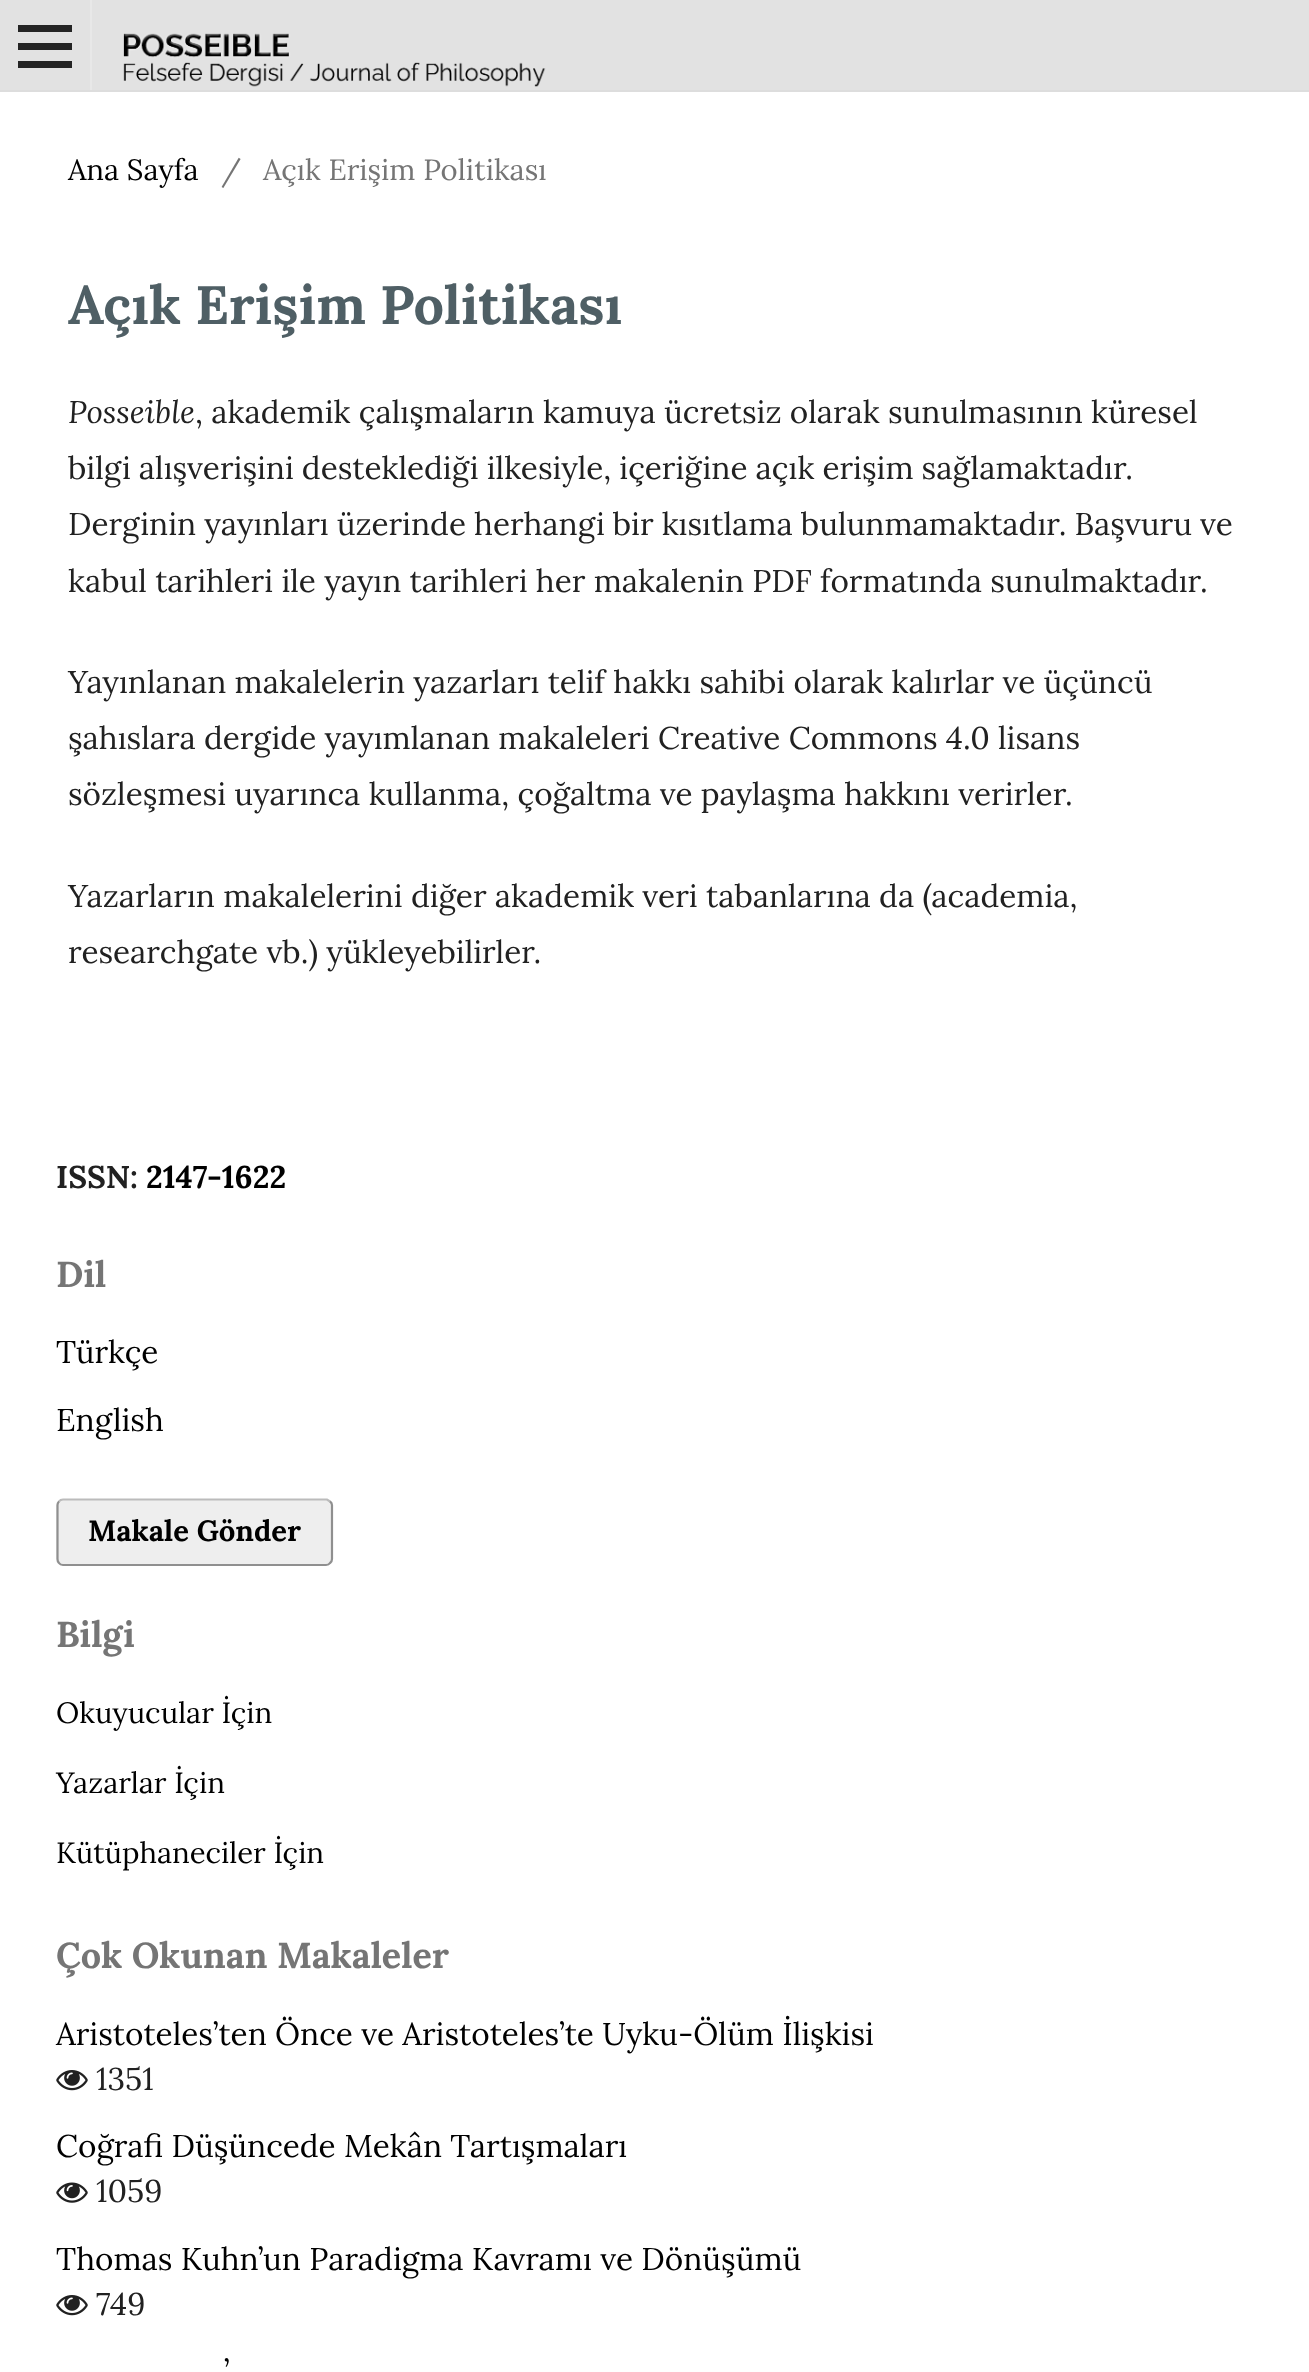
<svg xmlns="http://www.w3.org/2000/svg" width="1309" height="2372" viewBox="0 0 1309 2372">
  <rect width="100%" height="100%" fill="rgb(255,255,255)"/>
  <rect x="0" y="0" width="1309" height="90" fill="rgb(226,226,226)"/>
  <rect x="0" y="90" width="1309" height="2" fill="rgb(221,221,221)"/>
  <rect x="90" y="0" width="2" height="90" fill="rgb(232,232,232)"/>
  <rect x="18" y="61" width="54" height="7" fill="rgb(36,36,36)"/>
  <rect x="18" y="25" width="54" height="7" fill="rgb(36,36,36)"/>
  <rect x="18" y="43" width="54" height="7" fill="rgb(36,36,36)"/>
  <image x="123" y="33" width="423" height="54" href="pic1.png"/>
  <text x="68" y="180" font-family="Lora" font-size="29.25" fill="rgb(0,0,0)">Ana Sayfa</text>
  <g font-family="Lora" font-size="29.25" fill="rgb(117,117,117)">
    <text x="221" y="180">/</text>
    <text x="263" y="180">Açık Erişim Politikası</text>
  </g>
  <text x="68" y="324" font-family="Lora" font-size="54" font-weight="bold" fill="rgb(79,95,101)">Açık Erişim Politikası</text>
  <text x="68" y="423" font-family="Lora" font-size="31.5" font-style="italic" fill="rgb(33,33,33)">Posseible</text>
  <g font-family="Lora" font-size="31.5" fill="rgb(33,33,33)">
    <text x="195" y="423">, akademik çalışmaların kamuya ücretsiz olarak sunulmasının küresel</text>
    <text>
      <tspan x="68" y="479" word-spacing="-0.25">bilgi alışverişini desteklediği ilkesiyle, içeriğine açık erişim sağlamaktadır.</tspan>
      <tspan x="68" y="535" word-spacing="-0.25">Derginin yayınları üzerinde herhangi bir kısıtlama bulunmamaktadır. Başvuru ve</tspan>
      <tspan x="68" y="592">kabul tarihleri ile yayın tarihleri her makalenin PDF formatında sunulmaktadır.</tspan>
    </text>
    <text>
      <tspan x="68" y="693">Yayınlanan makalelerin yazarları telif hakkı sahibi olarak kalırlar ve üçüncü</tspan>
      <tspan x="68" y="749">şahıslara dergide yayımlanan makaleleri Creative Commons 4.0 lisans</tspan>
      <tspan x="68" y="805">sözleşmesi uyarınca kullanma, çoğaltma ve paylaşma hakkını verirler.</tspan>
    </text>
    <text>
      <tspan x="68" y="907">Yazarların makalelerini diğer akademik veri tabanlarına da (academia,</tspan>
      <tspan x="68" y="963">researchgate vb.) yükleyebilirler.</tspan>
    </text>
  </g>
  <text x="56" y="1188" font-family="Lora" font-size="31.5" font-weight="bold" fill="rgb(33,33,33)">ISSN:</text>
  <text x="146" y="1188" font-family="Lora" font-size="31.5" font-weight="bold" fill="rgb(0,0,0)">2147-1622</text>
  <text x="56" y="1287" font-family="Lora" font-size="36" font-weight="bold" fill="rgb(117,117,117)">Dil</text>
  <g font-family="Lora" font-size="31.5" fill="rgb(0,0,0)">
    <text x="56" y="1363">Türkçe</text>
    <text x="56" y="1431">English</text>
  </g>
  <rect x="56" y="1499" width="277" height="67" rx="7" fill="rgb(238,238,238)"/>
  <path d="M59 1501.5C60 1500 61.5 1499.5 63 1499.5H327L330 1501.5" fill="none" stroke="rgb(187,187,187)" stroke-width="2.2"/>
  <path d="M330 1501.5C331.5 1502.5 332 1504 332 1505V1559C332 1560.5 331.5 1562 330 1563C329 1564.5 327.5 1565 326 1565H63C61.5 1565 60 1564.5 59 1563C58 1562 57.5 1560.5 57.5 1559V1505C57.5 1504 58 1502.5 59 1501.5" fill="none" stroke="rgba(0,0,0,0.4)" stroke-width="2.2"/>
  <text x="88" y="1541" font-family="Lora" font-size="29.25" font-weight="bold" fill="rgb(0,0,0)">Makale Gönder</text>
  <text x="56" y="1647" font-family="Lora" font-size="36" font-weight="bold" fill="rgb(117,117,117)">Bilgi</text>
  <g font-family="Lora" font-size="29.25" fill="rgb(0,0,0)">
    <text x="56" y="1723">Okuyucular İçin</text>
    <text x="56" y="1793">Yazarlar İçin</text>
    <text x="56" y="1863">Kütüphaneciler İçin</text>
  </g>
  <text x="56" y="1968" font-family="Lora" font-size="36" font-weight="bold" fill="rgb(117,117,117)">Çok Okunan Makaleler</text>
  <text x="56" y="2045" font-family="Lora" font-size="31.5" fill="rgb(0,0,0)">Aristoteles’ten Önce ve Aristoteles’te Uyku-Ölüm İlişkisi</text>
  <image x="56" y="2070" width="32" height="21" href="pic2.png"/>
  <text x="96" y="2090" font-family="Lora" font-size="31.5" fill="rgb(33,33,33)">1351</text>
  <text x="56" y="2157" font-family="Lora" font-size="31.5" fill="rgb(0,0,0)">Coğrafi Düşüncede Mekân Tartışmaları</text>
  <image x="56" y="2182" width="32" height="21" href="pic3.png"/>
  <text x="96" y="2202" font-family="Lora" font-size="31.5" fill="rgb(33,33,33)">1059</text>
  <text x="56" y="2270" font-family="Lora" font-size="31.5" fill="rgb(0,0,0)">Thomas Kuhn’un Paradigma Kavramı ve Dönüşümü</text>
  <image x="56" y="2295" width="32" height="21" href="pic2.png"/>
  <text x="96" y="2315" font-family="Lora" font-size="31.5" fill="rgb(33,33,33)">749</text>
  <text x="224" y="2382" font-family="Lora" font-size="31.5" fill="rgb(0,0,0)">’</text>
</svg>
